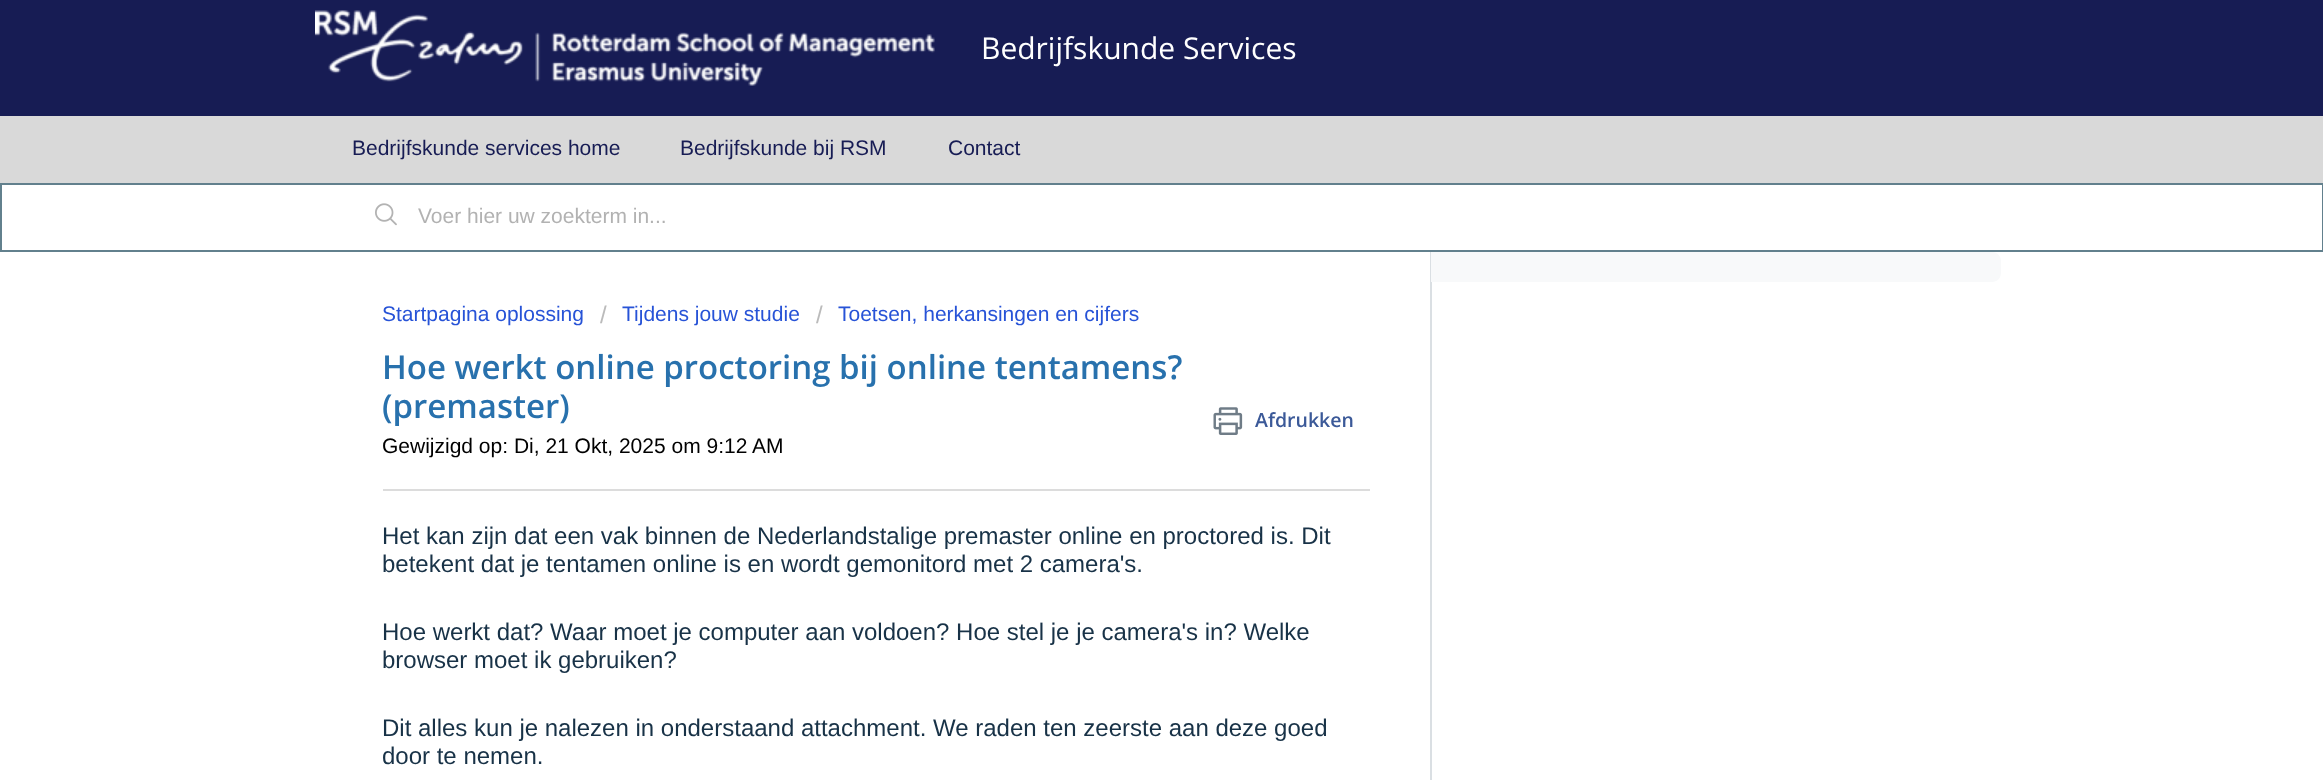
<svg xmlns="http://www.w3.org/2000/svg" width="2323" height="780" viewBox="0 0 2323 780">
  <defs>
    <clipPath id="clip1"><rect x="383" y="516" width="987" height="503"/></clipPath>
  </defs>
  <rect width="100%" height="100%" fill="rgb(255,255,255)"/>
  <rect x="0" y="0" width="2323" height="116" fill="rgb(23,28,84)"/>
  <image x="315" y="10" width="620" height="76" href="pic1.png"/>
  <text x="981" y="59" font-family="Open Sans" font-size="30" fill="rgb(255,255,255)">Bedrijfskunde Services</text>
  <rect x="0" y="116" width="2323" height="67" fill="rgb(217,217,217)"/>
  <g font-family="Liberation Sans" font-size="21" fill="rgb(23,28,84)">
    <text x="352" y="155">Bedrijfskunde services home</text>
    <text x="680" y="155">Bedrijfskunde bij RSM</text>
    <text x="948" y="155">Contact</text>
  </g>
  <rect x="1" y="184" width="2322" height="67" fill="none" stroke="rgb(98,128,141)" stroke-width="2"/>
  <image x="375" y="203" width="22" height="23" href="pic2.png"/>
  <text x="418" y="223" font-family="Liberation Sans" font-size="21" fill="rgb(178,178,178)">Voer hier uw zoekterm in...</text>
  <rect x="1430" y="252" width="2" height="528" fill="rgb(218,223,227)"/>
  <path d="M1431 252H1992C1997 252 2001 256 2001 261V273C2001 278 1997 282 1992 282H1431Z" fill="rgb(248,249,250)"/>
  <text x="382" y="321" font-family="Liberation Sans" font-size="21" fill="rgb(39,83,215)">Startpagina oplossing</text>
  <text x="600" y="323" font-family="Liberation Sans" font-size="24" fill="rgb(187,187,187)">/</text>
  <text x="622" y="321" font-family="Liberation Sans" font-size="21" fill="rgb(39,83,215)">Tijdens jouw studie</text>
  <text x="816" y="323" font-family="Liberation Sans" font-size="24" fill="rgb(187,187,187)">/</text>
  <text x="838" y="321" font-family="Liberation Sans" font-size="21" fill="rgb(39,83,215)">Toetsen, herkansingen en cijfers</text>
  <g font-family="Open Sans" font-size="33" font-weight="600" fill="rgb(40,113,173)">
    <text>
      <tspan x="382" y="379">Hoe werkt online proctoring bij online tentamens?</tspan>
      <tspan x="382" y="418">(premaster)</tspan>
    </text>
  </g>
  <image x="1213" y="407" width="30" height="28" href="pic3.png"/>
  <text x="1255" y="427" font-family="Open Sans" font-size="19.5" font-weight="600" fill="rgb(59,89,152)">Afdrukken</text>
  <text x="382" y="453" font-family="Liberation Sans" font-size="21" fill="rgb(0,0,0)">Gewijzigd op: Di, 21 Okt, 2025 om 9:12 AM</text>
  <rect x="383" y="489" width="987" height="2" fill="rgb(220,220,220)"/>
  <g font-family="Liberation Sans" font-size="24" fill="rgb(24,50,71)">
    <text>
      <tspan x="382" y="544">Het kan zijn dat een vak binnen de Nederlandstalige premaster online en proctored is. Dit</tspan>
      <tspan x="382" y="572">betekent dat je tentamen online is en wordt gemonitord met 2 camera's.</tspan>
    </text>
    <text>
      <tspan x="382" y="640">Hoe werkt dat? Waar moet je computer aan voldoen? Hoe stel je je camera's in? Welke</tspan>
      <tspan x="382" y="668">browser moet ik gebruiken?</tspan>
    </text>
    <text x="382" y="736">Dit alles kun je nalezen in onderstaand attachment. We raden ten zeerste aan deze goed</text>
  </g>
  <g clip-path="url(#clip1)">
    <text x="382" y="764" font-family="Liberation Sans" font-size="24" fill="rgb(24,50,71)">door te nemen.</text>
  </g>
</svg>
